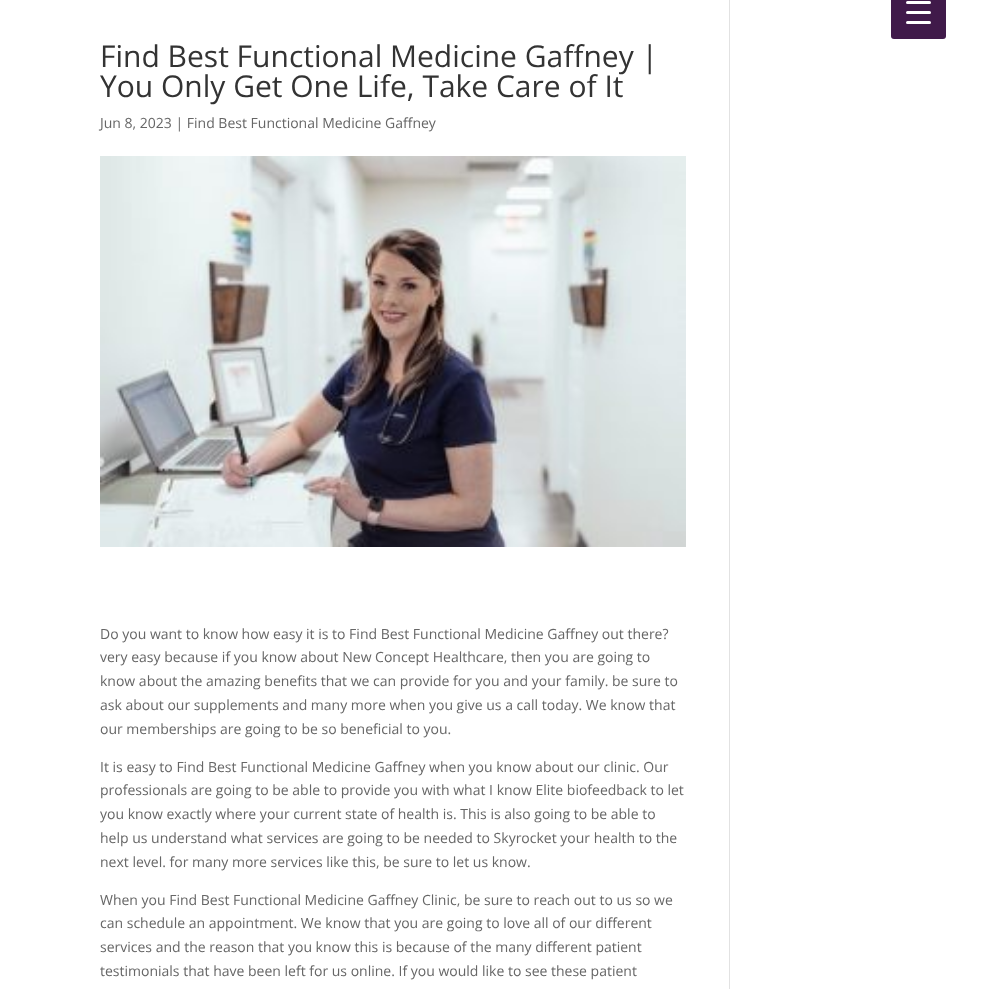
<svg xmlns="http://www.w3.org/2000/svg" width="996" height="989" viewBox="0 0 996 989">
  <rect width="100%" height="100%" fill="rgb(255,255,255)"/>
  <rect x="891" y="-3" width="55" height="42" rx="3" fill="rgb(64,26,74)"/>
  <rect x="906" y="11" width="25" height="3" rx="1.5" fill="rgb(255,255,255)"/>
  <rect x="906" y="1" width="25" height="3" rx="1.5" fill="rgb(255,255,255)"/>
  <rect x="906" y="21" width="25" height="3" rx="1.5" fill="rgb(255,255,255)"/>
  <g font-family="Open Sans" font-size="30" fill="rgb(51,51,51)">
    <text>
      <tspan x="100" y="67">Find Best Functional Medicine Gaffney |</tspan>
      <tspan x="100" y="97">You Only Get One Life, Take Care of It</tspan>
    </text>
  </g>
  <text x="100" y="128" font-family="Open Sans" font-size="14" fill="rgb(102,102,102)">Jun 8, 2023 | Find Best Functional Medicine Gaffney</text>
  <image x="100" y="156" width="586" height="391" href="pic1.png"/>
  <g font-family="Open Sans" font-size="14" fill="rgb(102,102,102)">
    <text>
      <tspan x="100" y="639">Do you want to know how easy it is to Find Best Functional Medicine Gaffney out there?</tspan>
      <tspan x="100" y="662">very easy because if you know about New Concept Healthcare, then you are going to</tspan>
      <tspan x="100" y="686">know about the amazing benefits that we can provide for you and your family. be sure to</tspan>
      <tspan x="100" y="710">ask about our supplements and many more when you give us a call today. We know that</tspan>
      <tspan x="100" y="734">our memberships are going to be so beneficial to you.</tspan>
    </text>
    <text>
      <tspan x="100" y="772">It is easy to Find Best Functional Medicine Gaffney when you know about our clinic. Our</tspan>
      <tspan x="100" y="795">professionals are going to be able to provide you with what I know Elite biofeedback to let</tspan>
      <tspan x="100" y="819">you know exactly where your current state of health is. This is also going to be able to</tspan>
      <tspan x="100" y="843">help us understand what services are going to be needed to Skyrocket your health to the</tspan>
      <tspan x="100" y="867">next level. for many more services like this, be sure to let us know.</tspan>
    </text>
    <text>
      <tspan x="100" y="905">When you Find Best Functional Medicine Gaffney Clinic, be sure to reach out to us so we</tspan>
      <tspan x="100" y="928">can schedule an appointment. We know that you are going to love all of our different</tspan>
      <tspan x="100" y="952">services and the reason that you know this is because of the many different patient</tspan>
      <tspan x="100" y="976">testimonials that have been left for us online. If you would like to see these patient</tspan>
    </text>
  </g>
  <rect x="729" y="0" width="1" height="989" fill="rgb(226,226,226)"/>
</svg>
